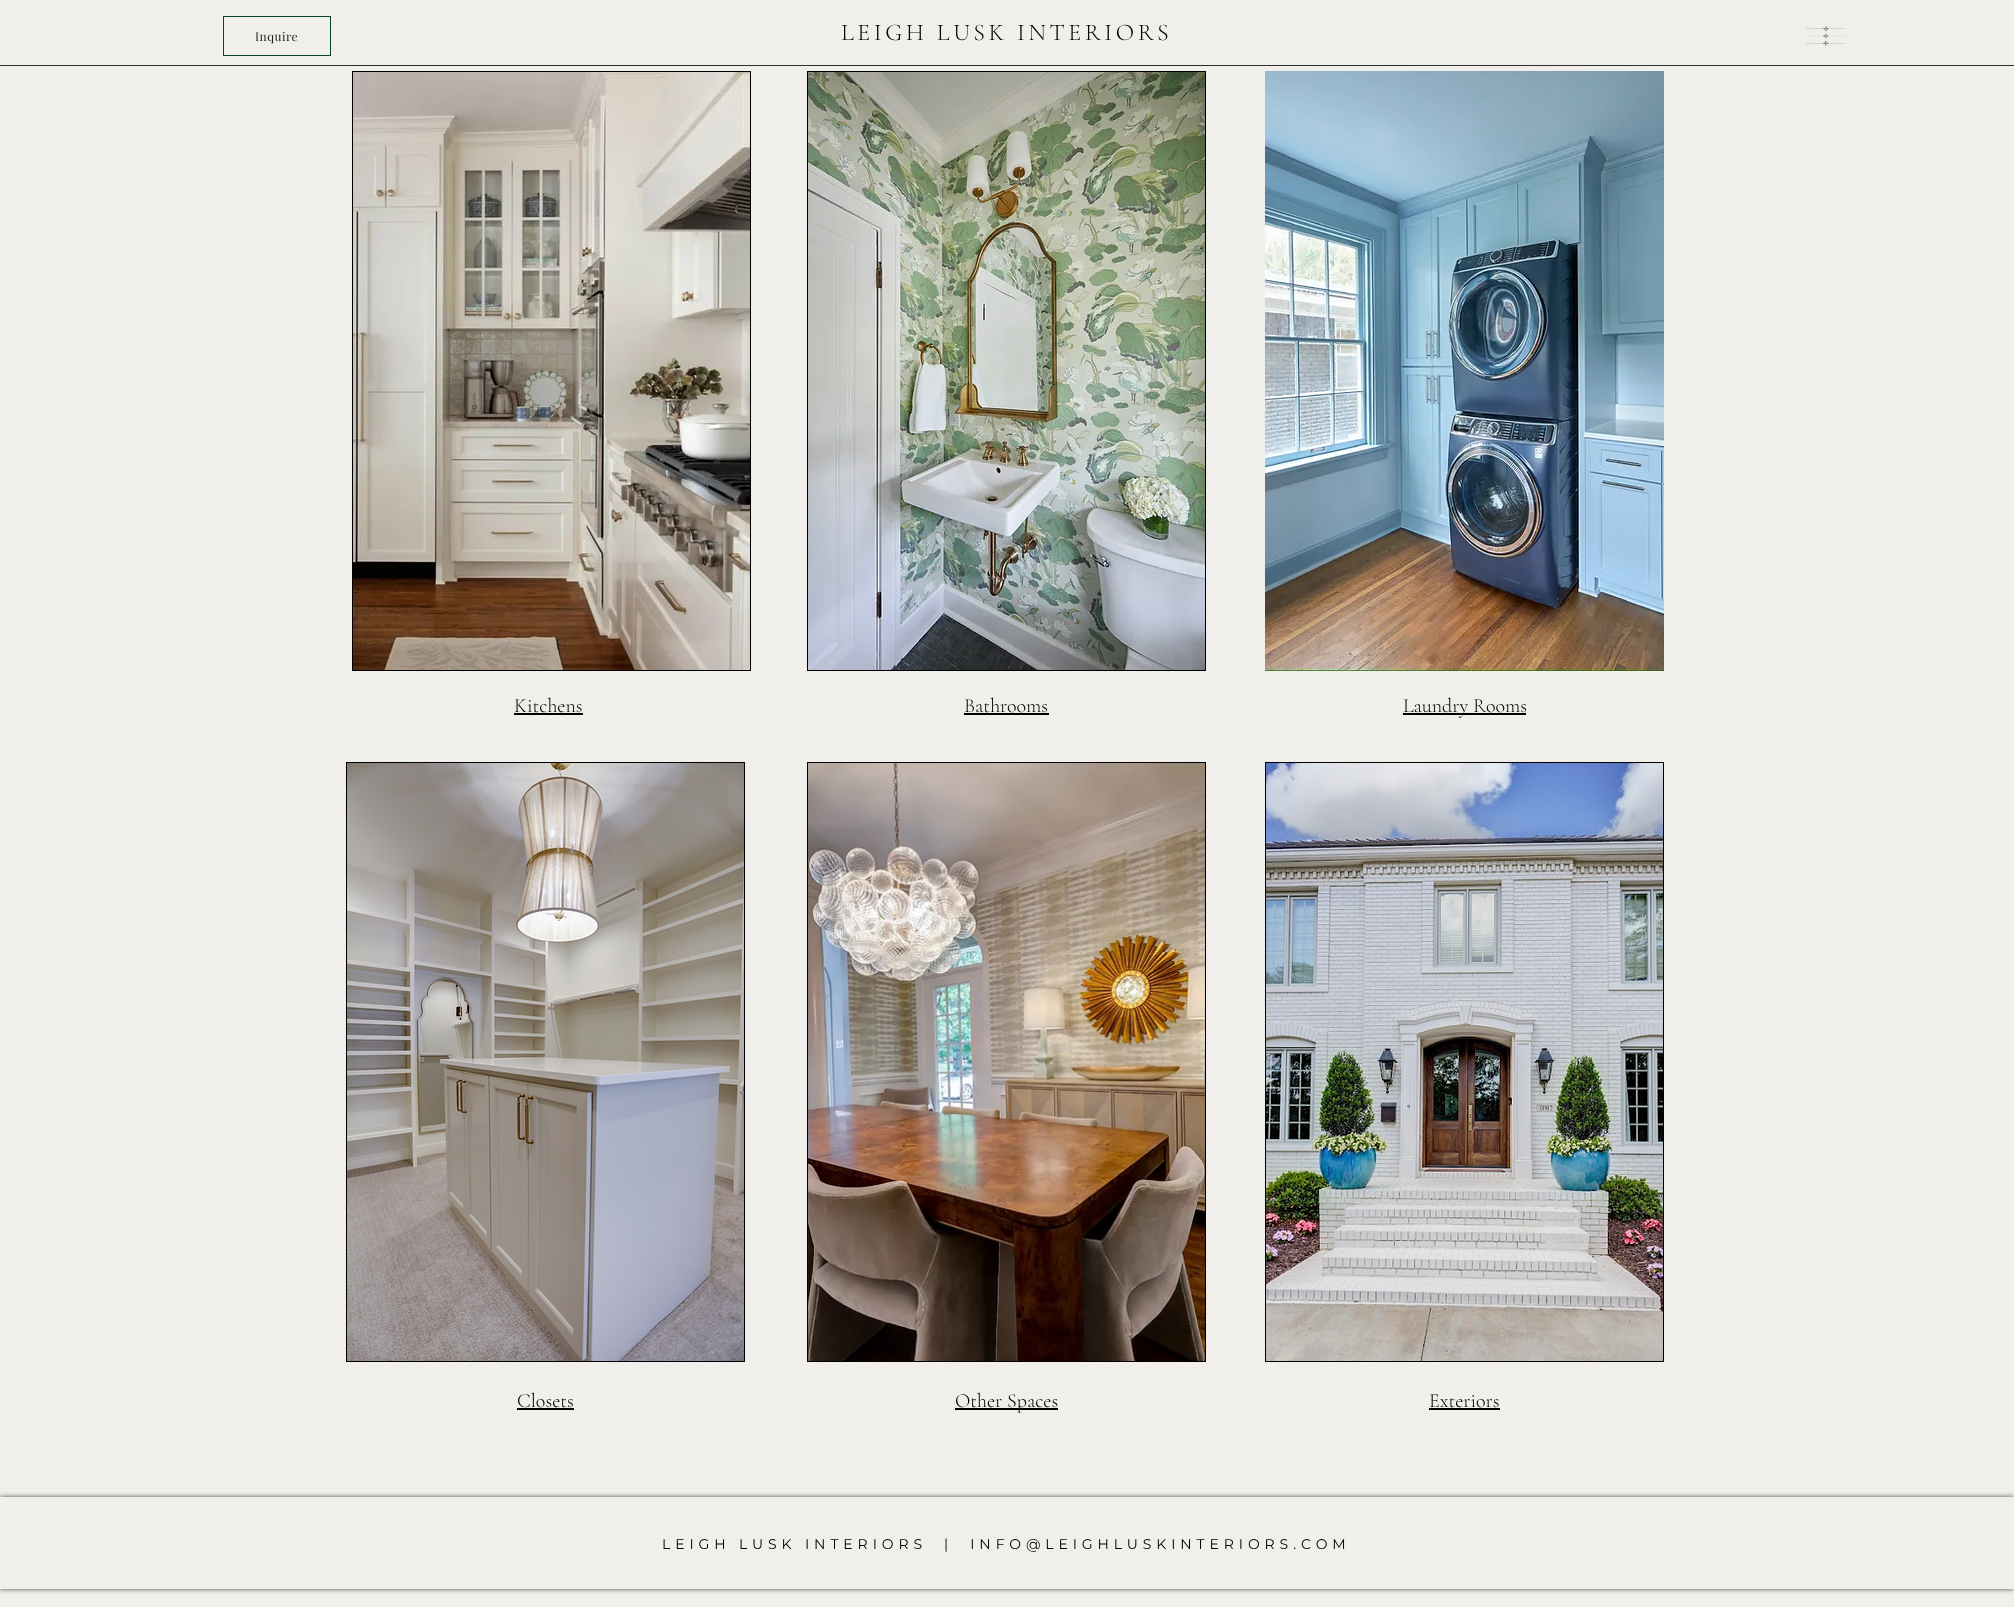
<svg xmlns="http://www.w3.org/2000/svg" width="2014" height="1607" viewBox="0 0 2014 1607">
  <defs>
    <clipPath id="clip1"><path d="M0 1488H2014V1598H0ZM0 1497H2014V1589H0Z" clip-rule="evenodd"/></clipPath>
  </defs>
  <rect width="100%" height="100%" fill="rgb(240,239,236)"/>
  <rect x="223.5" y="16.5" width="107" height="39" fill="none" stroke="rgb(12,68,38)"/>
  <text x="255" y="41" font-family="Playfair Display" font-size="12" letter-spacing="0.5" fill="rgb(31,31,31)">Inquire</text>
  <text x="841" y="40" font-family="Cormorant Garamond" font-size="24" font-weight="300" letter-spacing="3.6" fill="rgb(0,0,0)">LEIGH LUSK INTERIORS</text>
  <image x="1806" y="26" width="39" height="20" href="pic1.png"/>
  <rect x="0" y="65" width="2014" height="1" fill="rgb(47,46,46)"/>
  <rect x="352" y="71" width="399" height="600" fill="rgb(0,0,0)"/>
  <image x="353" y="72" width="397" height="598" href="pic2.png"/>
  <rect x="807" y="71" width="399" height="600" fill="rgb(0,0,0)"/>
  <image x="808" y="72" width="397" height="598" href="pic3.png"/>
  <image x="1265" y="71" width="399" height="600" href="pic4.png"/>
  <text x="514" y="712" font-family="Cormorant Garamond" font-size="20" font-weight="300" fill="rgb(0,0,0)">Kitchens</text>
  <rect x="514" y="713" width="69" height="2" fill="rgb(0,0,0)"/>
  <text x="964" y="712" font-family="Cormorant Garamond" font-size="20" font-weight="300" fill="rgb(0,0,0)">Bathrooms</text>
  <rect x="964" y="713" width="85" height="2" fill="rgb(0,0,0)"/>
  <rect x="1403" y="713" width="123" height="2" fill="rgb(0,0,0)"/>
  <text x="1403" y="712" font-family="Cormorant Garamond" font-size="20" font-weight="300" fill="rgb(0,0,0)">Laundry Rooms</text>
  <rect x="346" y="762" width="399" height="600" fill="rgb(0,0,0)"/>
  <image x="347" y="763" width="397" height="598" href="pic5.png"/>
  <rect x="807" y="762" width="399" height="600" fill="rgb(0,0,0)"/>
  <image x="808" y="763" width="397" height="598" href="pic6.png"/>
  <rect x="1265" y="762" width="399" height="600" fill="rgb(0,0,0)"/>
  <image x="1266" y="763" width="397" height="598" href="pic7.png"/>
  <text x="517" y="1407" font-family="Cormorant Garamond" font-size="20" font-weight="300" fill="rgb(0,0,0)">Closets</text>
  <rect x="517" y="1408" width="57" height="2" fill="rgb(0,0,0)"/>
  <rect x="955" y="1408" width="103" height="2" fill="rgb(0,0,0)"/>
  <g font-family="Cormorant Garamond" font-size="20" font-weight="300" fill="rgb(0,0,0)">
    <text x="955" y="1407">Other Spaces</text>
    <text x="1429" y="1407">Exteriors</text>
  </g>
  <rect x="1429" y="1408" width="71" height="2" fill="rgb(0,0,0)"/>
  <g clip-path="url(#clip1)">
    <rect x="0" y="1497" width="2014" height="92" fill="rgba(0,0,0,0.7)" filter="blur(2.5px)"/>
  </g>
  <text x="662" y="1549" font-family="Montserrat" font-size="14" letter-spacing="4.9" fill="rgb(0,0,0)" xml:space="preserve">LEIGH LUSK INTERIORS  |  INFO@LEIGHLUSKINTERIORS.COM</text>
</svg>
